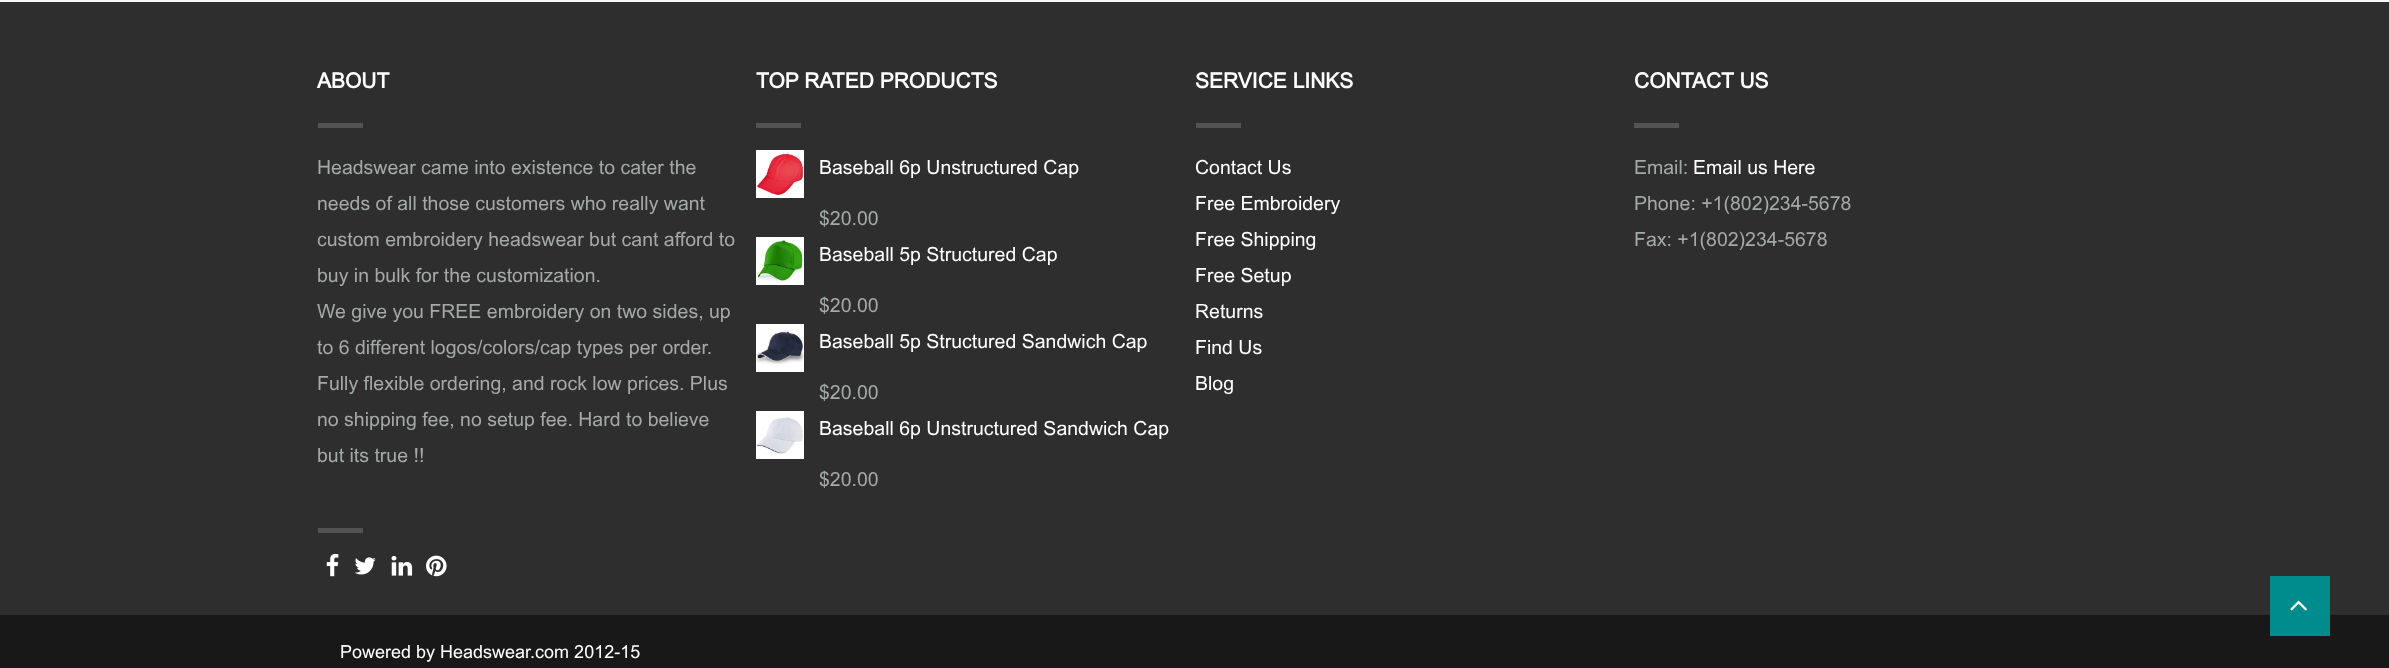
<svg xmlns="http://www.w3.org/2000/svg" width="2389" height="668" viewBox="0 0 2389 668">
  <rect width="100%" height="100%" fill="rgb(247,247,249)"/>
  <rect x="0" y="2" width="2389" height="613" fill="rgb(47,46,46)"/>
  <text x="317" y="88" font-family="Arial" font-size="21" font-weight="bold" fill="rgb(255,255,255)">ABOUT</text>
  <rect x="318" y="123" width="45" height="5" fill="rgb(83,83,83)"/>
  <g font-family="Arial" font-size="19.5" fill="rgb(163,168,169)">
    <text>
      <tspan x="317" y="174">Headswear came into existence to cater the</tspan>
      <tspan x="317" y="210">needs of all those customers who really want</tspan>
      <tspan x="317" y="246">custom embroidery headswear but cant afford to</tspan>
      <tspan x="317" y="282">buy in bulk for the customization.</tspan>
      <tspan x="317" y="318">We give you FREE embroidery on two sides, up</tspan>
      <tspan x="317" y="354">to 6 different logos/colors/cap types per order.</tspan>
      <tspan x="317" y="390">Fully flexible ordering, and rock low prices. Plus</tspan>
      <tspan x="317" y="426">no shipping fee, no setup fee. Hard to believe</tspan>
      <tspan x="317" y="462">but its true !!</tspan>
    </text>
  </g>
  <text x="756" y="88" font-family="Arial" font-size="21" font-weight="bold" fill="rgb(255,255,255)">TOP RATED PRODUCTS</text>
  <rect x="756" y="123" width="45" height="5" fill="rgb(83,83,83)"/>
  <image x="756" y="150" width="48" height="48" href="pic1.png"/>
  <text x="819" y="174" font-family="Arial" font-size="19.5" fill="rgb(255,255,255)">Baseball 6p Unstructured Cap</text>
  <text x="819" y="225" font-family="Arial" font-size="19.5" fill="rgb(163,168,169)">$20.00</text>
  <image x="756" y="237" width="48" height="48" href="pic2.png"/>
  <text x="819" y="261" font-family="Arial" font-size="19.5" fill="rgb(255,255,255)">Baseball 5p Structured Cap</text>
  <text x="819" y="312" font-family="Arial" font-size="19.5" fill="rgb(163,168,169)">$20.00</text>
  <image x="756" y="324" width="48" height="48" href="pic3.png"/>
  <text x="819" y="348" font-family="Arial" font-size="19.5" fill="rgb(255,255,255)">Baseball 5p Structured Sandwich Cap</text>
  <text x="819" y="399" font-family="Arial" font-size="19.5" fill="rgb(163,168,169)">$20.00</text>
  <image x="756" y="411" width="48" height="48" href="pic4.png"/>
  <text x="819" y="435" font-family="Arial" font-size="19.5" fill="rgb(255,255,255)">Baseball 6p Unstructured Sandwich Cap</text>
  <text x="819" y="486" font-family="Arial" font-size="19.5" fill="rgb(163,168,169)">$20.00</text>
  <text x="1195" y="88" font-family="Arial" font-size="21" font-weight="bold" fill="rgb(255,255,255)">SERVICE LINKS</text>
  <rect x="1196" y="123" width="45" height="5" fill="rgb(83,83,83)"/>
  <g font-family="Arial" font-size="19.5" fill="rgb(255,255,255)">
    <text>
      <tspan x="1195" y="174">Contact Us</tspan>
      <tspan x="1195" y="210">Free Embroidery</tspan>
      <tspan x="1195" y="246">Free Shipping</tspan>
      <tspan x="1195" y="282">Free Setup</tspan>
      <tspan x="1195" y="318">Returns</tspan>
      <tspan x="1195" y="354">Find Us</tspan>
      <tspan x="1195" y="390">Blog</tspan>
    </text>
  </g>
  <text x="1634" y="88" font-family="Arial" font-size="21" font-weight="bold" fill="rgb(255,255,255)">CONTACT US</text>
  <rect x="1634" y="123" width="45" height="5" fill="rgb(83,83,83)"/>
  <text x="1634" y="174" font-family="Arial" font-size="19.5" fill="rgb(163,168,169)">Email:</text>
  <text x="1693" y="174" font-family="Arial" font-size="19.5" fill="rgb(255,255,255)">Email us Here</text>
  <g font-family="Arial" font-size="19.5" fill="rgb(163,168,169)">
    <text>
      <tspan x="1634" y="210">Phone: +1(802)234-5678</tspan>
      <tspan x="1634" y="246">Fax: +1(802)234-5678</tspan>
    </text>
  </g>
  <rect x="318" y="528" width="45" height="5" fill="rgb(83,83,83)"/>
  <image x="326" y="553" width="13" height="24" href="pic5.png"/>
  <image x="354" y="557" width="22" height="18" href="pic6.png"/>
  <image x="391" y="555" width="22" height="21" href="pic7.png"/>
  <image x="426" y="555" width="21" height="22" href="pic8.png"/>
  <rect x="0" y="615" width="2389" height="53" fill="rgb(24,24,24)"/>
  <rect x="2270" y="576" width="60" height="60" fill="rgb(0,140,141)"/>
  <image x="2290" y="600" width="17" height="11" href="pic9.png"/>
  <text x="340" y="658" font-family="Arial" font-size="18" fill="rgb(255,255,255)">Powered by Headswear.com 2012-15</text>
</svg>
